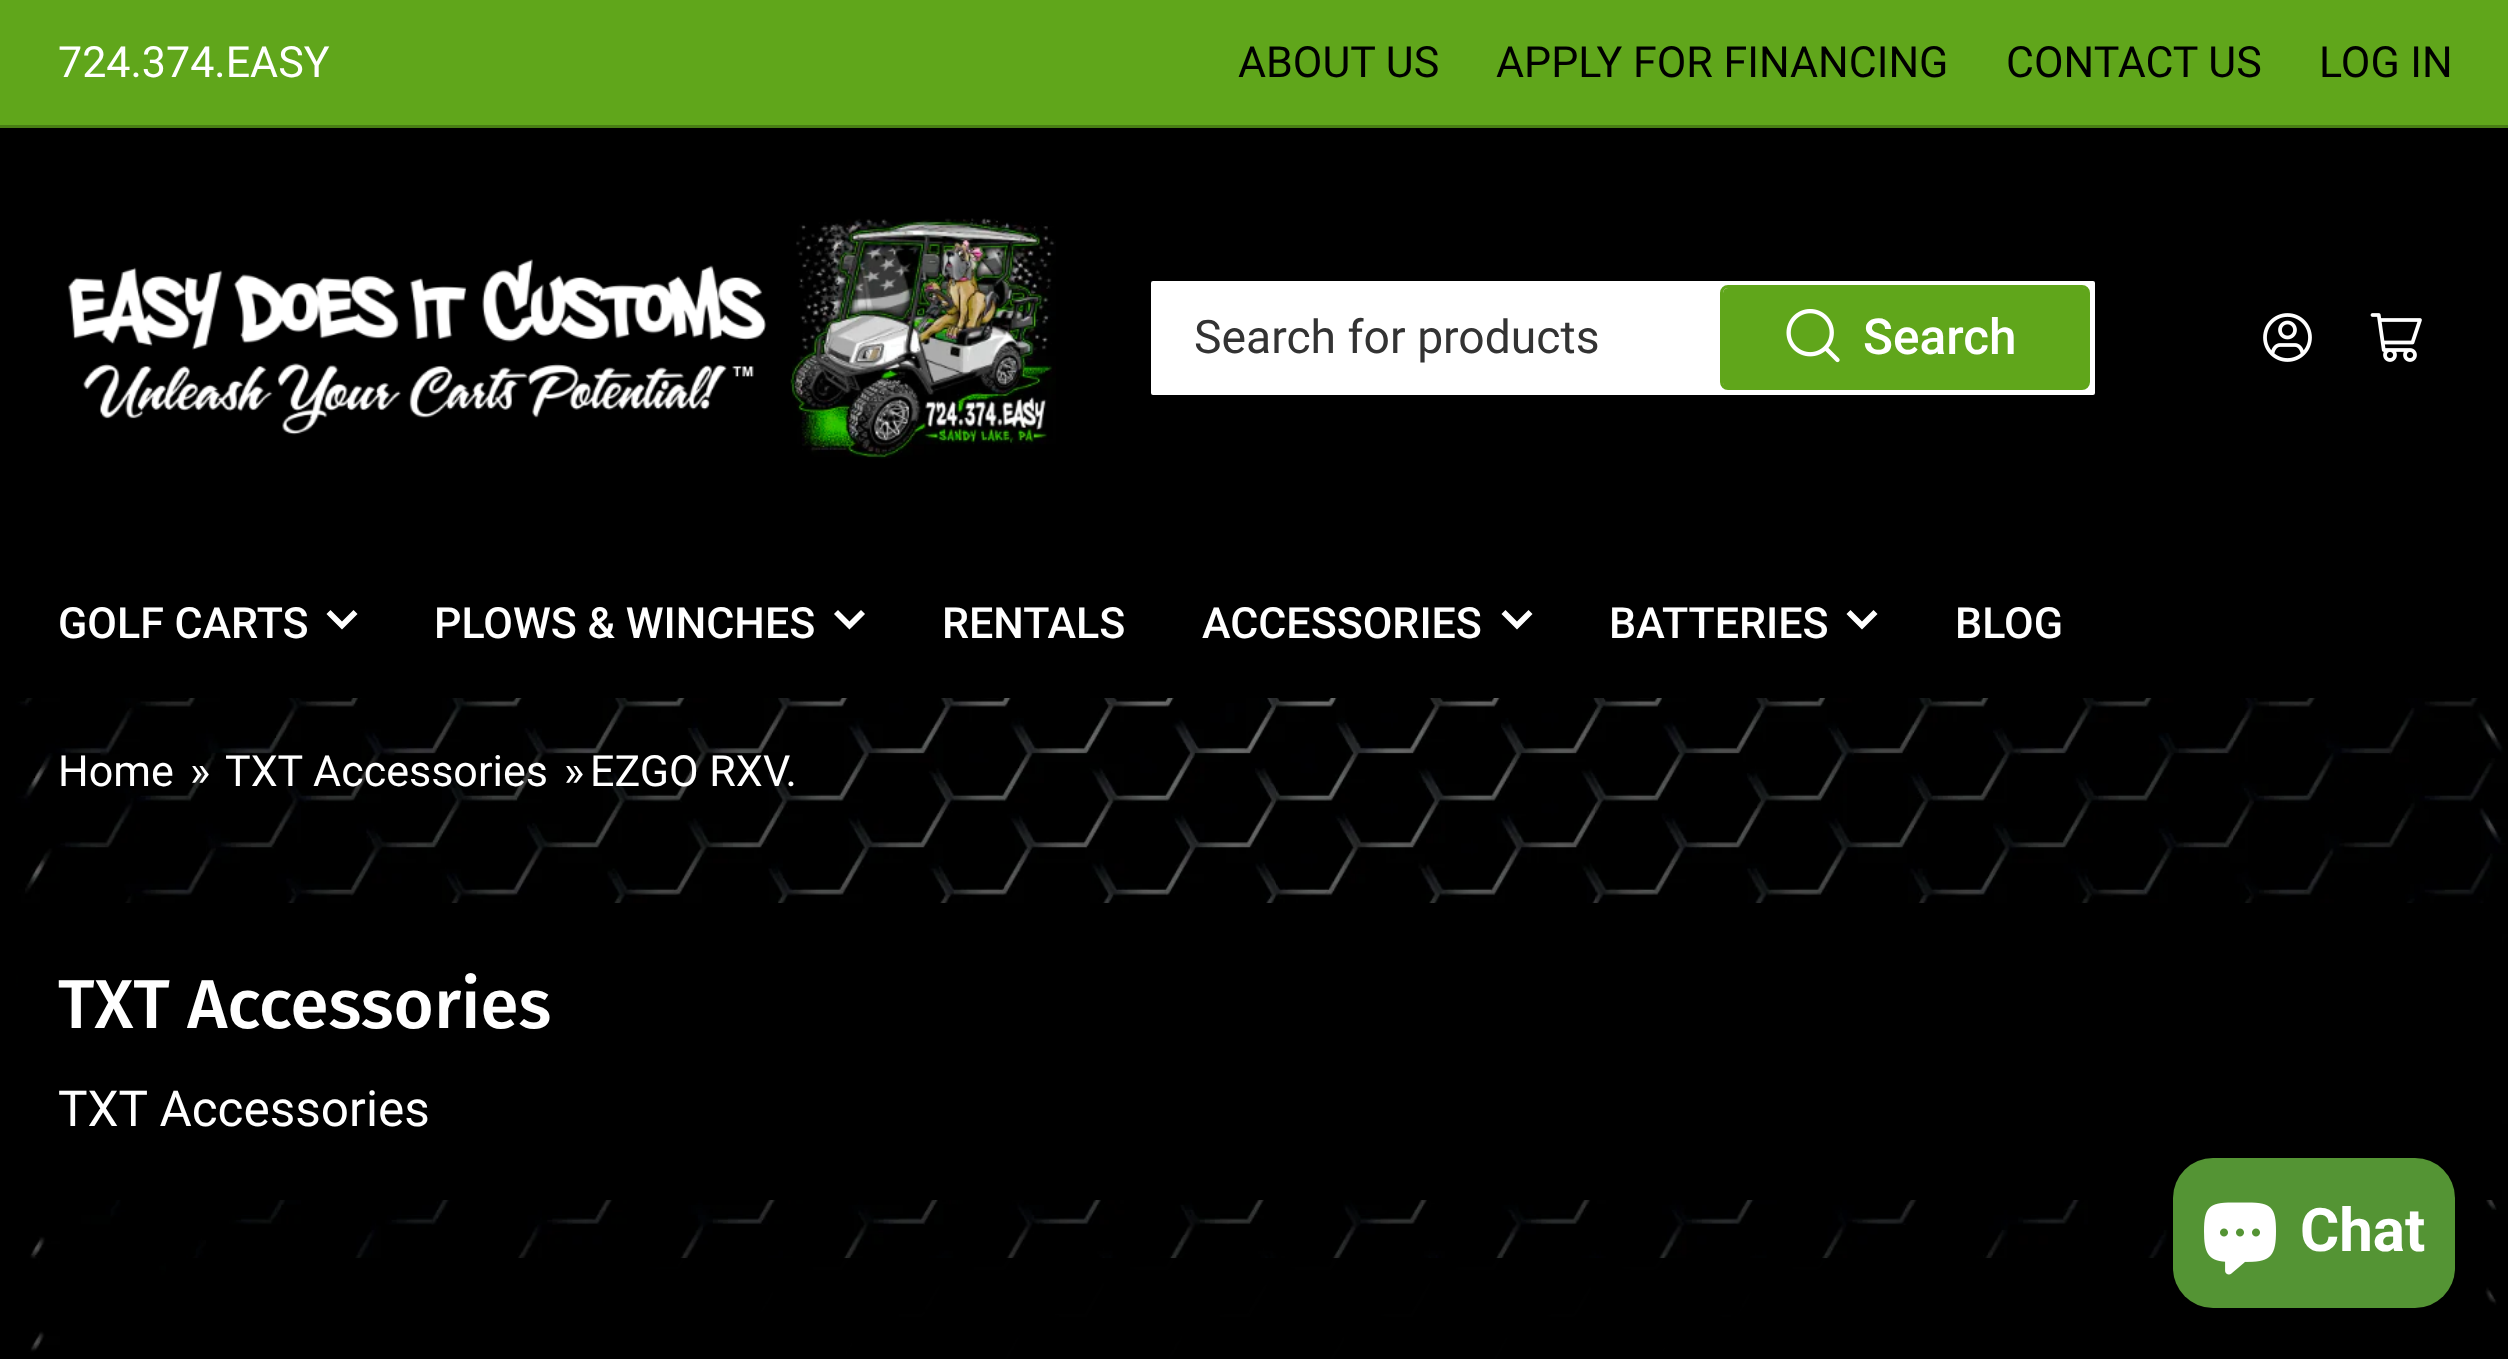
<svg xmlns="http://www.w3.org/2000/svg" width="2508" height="1359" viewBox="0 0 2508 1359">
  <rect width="100%" height="100%" fill="rgb(255,255,255)"/>
  <image x="0" y="698" width="2508" height="661" href="pic1.png"/>
  <rect x="0" y="0" width="2508" height="125" fill="rgb(96,166,27)"/>
  <rect x="0" y="125" width="2508" height="3" fill="rgb(72,125,20)"/>
  <text x="58" y="77" font-family="Roboto" font-size="43" fill="rgb(255,255,255)">724.374.EASY</text>
  <g font-family="Roboto" font-size="43" fill="rgb(0,0,0)">
    <text x="1238" y="77">ABOUT US</text>
    <text x="1496" y="77">APPLY FOR FINANCING</text>
    <text x="2006" y="77">CONTACT US</text>
    <text x="2319" y="77">LOG IN</text>
  </g>
  <rect x="0" y="128" width="2508" height="570" fill="rgb(0,0,0)"/>
  <image x="68" y="218" width="988" height="241" href="pic2.png"/>
  <rect x="1149.5" y="279.5" width="947" height="117" rx="3.5" fill="rgb(255,255,255)" stroke="rgb(0,0,0)" stroke-width="3"/>
  <text x="1194" y="353" font-family="Roboto" font-size="46.25" fill="rgb(51,51,51)">Search for products</text>
  <rect x="1721.5" y="286.5" width="367" height="102" rx="6.5" fill="none" stroke="rgb(96,166,27)" stroke-width="3"/>
  <rect x="1723" y="288" width="365" height="100" rx="5" fill="rgb(96,166,27)"/>
  <image x="1786" y="309" width="54" height="54" href="pic3.png"/>
  <text x="1863" y="354" font-family="Roboto" font-size="49.5" font-weight="500" fill="rgb(255,255,255)">Search</text>
  <image x="2263" y="313" width="49" height="49" href="pic4.png"/>
  <image x="2370" y="313" width="52" height="49" href="pic5.png"/>
  <text x="58" y="638" font-family="Roboto" font-size="43" font-weight="500" fill="rgb(255,255,255)">GOLF CARTS</text>
  <path d="M353.5 614L342 625.5L330.5 614" fill="none" stroke="rgb(255,255,255)" stroke-width="5.7" stroke-linecap="square"/>
  <text x="434" y="638" font-family="Roboto" font-size="43" font-weight="500" fill="rgb(255,255,255)">PLOWS &amp; WINCHES</text>
  <path d="M861 614L849.5 625.5L838 614" fill="none" stroke="rgb(255,255,255)" stroke-width="5.7" stroke-linecap="square"/>
  <g font-family="Roboto" font-size="43" font-weight="500" fill="rgb(255,255,255)">
    <text x="942" y="638">RENTALS</text>
    <text x="1202" y="638">ACCESSORIES</text>
  </g>
  <path d="M1528.5 614L1517 625.5L1505.5 614" fill="none" stroke="rgb(255,255,255)" stroke-width="5.7" stroke-linecap="square"/>
  <text x="1609" y="638" font-family="Roboto" font-size="43" font-weight="500" fill="rgb(255,255,255)">BATTERIES</text>
  <path d="M1873.5 614L1862 625.5L1850.5 614" fill="none" stroke="rgb(255,255,255)" stroke-width="5.7" stroke-linecap="square"/>
  <text x="1955" y="638" font-family="Roboto" font-size="43" font-weight="500" fill="rgb(255,255,255)">BLOG</text>
  <g font-family="Roboto" font-size="43" fill="rgb(255,255,255)">
    <text x="58" y="786">Home</text>
    <text x="190" y="786">»</text>
    <text x="225" y="786">TXT Accessories</text>
    <text x="564" y="786">»</text>
    <text x="590" y="786">EZGO RXV.</text>
  </g>
  <rect x="18" y="903" width="2484" height="297" fill="rgb(0,0,0)"/>
  <text x="58" y="1028" font-family="Fira Sans" font-size="69" font-weight="500" fill="rgb(255,255,255)">TXT Accessories</text>
  <text x="58" y="1126" font-family="Roboto" font-size="49.5" fill="rgb(255,255,255)">TXT Accessories</text>
  <rect x="166" y="1258" width="2153" height="101" fill="rgba(0,0,0,0.97)"/>
  <rect x="2173" y="1158" width="282" height="150" rx="40" fill="rgb(84,148,52)"/>
  <image x="2204" y="1202" width="72" height="73" href="pic6.png"/>
  <text x="2300" y="1251" font-family="Roboto" font-size="60" font-weight="bold" fill="rgb(255,255,255)">Chat</text>
</svg>
